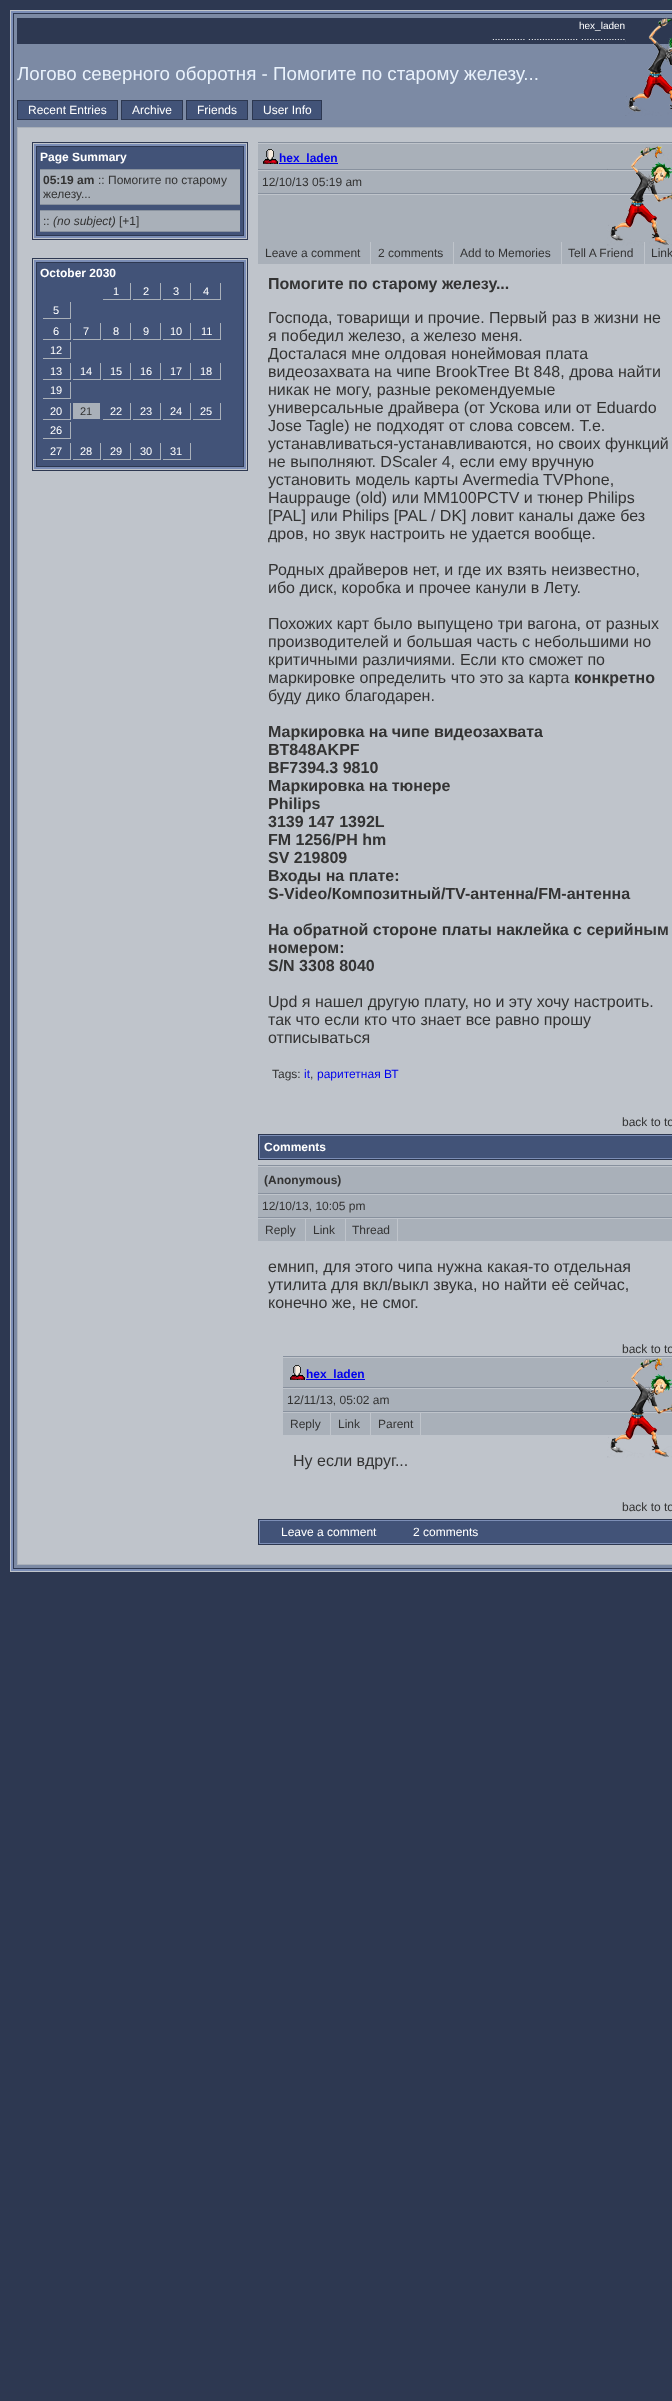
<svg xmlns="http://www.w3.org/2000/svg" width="672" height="2401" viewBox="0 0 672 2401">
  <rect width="100%" height="100%" fill="rgb(45,56,81)"/>
  <rect x="10.5" y="10.5" width="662" height="1561" fill="none" stroke="rgb(191,196,203)"/>
  <rect x="12" y="12" width="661" height="1558" fill="none" stroke="rgb(124,142,182)" stroke-width="2"/>
  <rect x="14" y="14" width="658" height="1554" fill="rgb(124,138,164)"/>
  <rect x="17" y="18" width="655" height="26" fill="rgb(45,56,81)"/>
  <g font-family="Liberation Sans" font-size="10" fill="rgb(255,255,255)">
    <text x="579" y="29">hex_laden</text>
    <text x="492" y="40">............ .................. ................</text>
  </g>
  <image x="625" y="17" width="47" height="99" href="pic1.png"/>
  <text x="17" y="80" font-family="Liberation Sans" font-size="18.75" fill="rgb(233,242,252)">Логово северного оборотня - Помогите по старому железу...</text>
  <rect x="17.5" y="100.5" width="100" height="19" fill="rgb(66,83,120)" stroke="rgb(45,56,81)"/>
  <text x="28" y="114" font-family="Liberation Sans" font-size="12" fill="rgb(255,255,255)">Recent Entries</text>
  <rect x="121.5" y="100.5" width="61" height="19" fill="rgb(66,83,120)" stroke="rgb(45,56,81)"/>
  <text x="132" y="114" font-family="Liberation Sans" font-size="12" fill="rgb(255,255,255)">Archive</text>
  <rect x="186.5" y="100.5" width="61" height="19" fill="rgb(66,83,120)" stroke="rgb(45,56,81)"/>
  <text x="197" y="114" font-family="Liberation Sans" font-size="12" fill="rgb(255,255,255)">Friends</text>
  <rect x="252.5" y="100.5" width="69" height="19" fill="rgb(66,83,120)" stroke="rgb(45,56,81)"/>
  <text x="263" y="114" font-family="Liberation Sans" font-size="12" fill="rgb(255,255,255)">User Info</text>
  <rect x="17.5" y="127.5" width="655" height="1437" fill="rgb(191,196,203)" stroke="rgb(169,176,185)"/>
  <rect x="32.5" y="142.5" width="215" height="97" fill="none" stroke="rgb(45,56,81)"/>
  <rect x="35" y="145" width="210" height="92" fill="none" stroke="rgb(124,142,182)" stroke-width="2"/>
  <rect x="36.5" y="146.5" width="207" height="89" fill="rgb(66,83,120)" stroke="rgb(45,56,81)"/>
  <text x="40" y="161" font-family="Liberation Sans" font-size="12" font-weight="bold" fill="rgb(255,255,255)">Page Summary</text>
  <rect x="40" y="170" width="200" height="34" fill="rgb(169,176,185)"/>
  <rect x="40" y="169" width="200" height="1" fill="rgb(136,145,158)"/>
  <rect x="40" y="204" width="200" height="1" fill="rgb(136,145,158)"/>
  <text x="43" y="184" font-family="Liberation Sans" font-size="12" font-weight="bold" fill="rgb(51,51,51)">05:19 am</text>
  <g font-family="Liberation Sans" font-size="12" fill="rgb(51,51,51)">
    <text x="98" y="184">:: Помогите по старому</text>
    <text x="43" y="198">железу...</text>
  </g>
  <rect x="40" y="211" width="200" height="20" fill="rgb(169,176,185)"/>
  <rect x="40" y="210" width="200" height="1" fill="rgb(136,145,158)"/>
  <rect x="40" y="231" width="200" height="1" fill="rgb(136,145,158)"/>
  <text x="43" y="225" font-family="Liberation Sans" font-size="12" fill="rgb(51,51,51)">::</text>
  <text x="53" y="225" font-family="Liberation Sans" font-size="12" font-style="italic" fill="rgb(51,51,51)">(no subject)</text>
  <text x="119" y="225" font-family="Liberation Sans" font-size="12" fill="rgb(51,51,51)">[+1]</text>
  <rect x="32.5" y="258.5" width="215" height="212" fill="none" stroke="rgb(45,56,81)"/>
  <rect x="35" y="261" width="210" height="207" fill="none" stroke="rgb(124,142,182)" stroke-width="2"/>
  <rect x="36.5" y="262.5" width="207" height="204" fill="rgb(66,83,120)" stroke="rgb(45,56,81)"/>
  <text x="40" y="277" font-family="Liberation Sans" font-size="12" font-weight="bold" fill="rgb(255,255,255)">October 2030</text>
  <rect x="130" y="283" width="1" height="17" fill="rgb(169,176,185)"/>
  <rect x="103" y="299" width="28" height="1" fill="rgb(169,176,185)"/>
  <text x="113" y="295" font-family="Liberation Sans" font-size="11" fill="rgb(255,255,255)">1</text>
  <rect x="160" y="283" width="1" height="17" fill="rgb(169,176,185)"/>
  <rect x="133" y="299" width="28" height="1" fill="rgb(169,176,185)"/>
  <text x="143" y="295" font-family="Liberation Sans" font-size="11" fill="rgb(255,255,255)">2</text>
  <rect x="190" y="283" width="1" height="17" fill="rgb(169,176,185)"/>
  <rect x="163" y="299" width="28" height="1" fill="rgb(169,176,185)"/>
  <text x="173" y="295" font-family="Liberation Sans" font-size="11" fill="rgb(255,255,255)">3</text>
  <rect x="220" y="283" width="1" height="17" fill="rgb(169,176,185)"/>
  <rect x="193" y="299" width="28" height="1" fill="rgb(169,176,185)"/>
  <text x="203" y="295" font-family="Liberation Sans" font-size="11" fill="rgb(255,255,255)">4</text>
  <rect x="70" y="302" width="1" height="17" fill="rgb(169,176,185)"/>
  <rect x="43" y="318" width="28" height="1" fill="rgb(169,176,185)"/>
  <text x="53" y="314" font-family="Liberation Sans" font-size="11" fill="rgb(255,255,255)">5</text>
  <rect x="70" y="323" width="1" height="17" fill="rgb(169,176,185)"/>
  <rect x="43" y="339" width="28" height="1" fill="rgb(169,176,185)"/>
  <text x="53" y="335" font-family="Liberation Sans" font-size="11" fill="rgb(255,255,255)">6</text>
  <rect x="100" y="323" width="1" height="17" fill="rgb(169,176,185)"/>
  <rect x="73" y="339" width="28" height="1" fill="rgb(169,176,185)"/>
  <text x="83" y="335" font-family="Liberation Sans" font-size="11" fill="rgb(255,255,255)">7</text>
  <rect x="130" y="323" width="1" height="17" fill="rgb(169,176,185)"/>
  <rect x="103" y="339" width="28" height="1" fill="rgb(169,176,185)"/>
  <text x="113" y="335" font-family="Liberation Sans" font-size="11" fill="rgb(255,255,255)">8</text>
  <rect x="160" y="323" width="1" height="17" fill="rgb(169,176,185)"/>
  <rect x="133" y="339" width="28" height="1" fill="rgb(169,176,185)"/>
  <text x="143" y="335" font-family="Liberation Sans" font-size="11" fill="rgb(255,255,255)">9</text>
  <rect x="190" y="323" width="1" height="17" fill="rgb(169,176,185)"/>
  <rect x="163" y="339" width="28" height="1" fill="rgb(169,176,185)"/>
  <text x="170" y="335" font-family="Liberation Sans" font-size="11" fill="rgb(255,255,255)">10</text>
  <rect x="220" y="323" width="1" height="17" fill="rgb(169,176,185)"/>
  <rect x="193" y="339" width="28" height="1" fill="rgb(169,176,185)"/>
  <text x="201" y="335" font-family="Liberation Sans" font-size="11" fill="rgb(255,255,255)">11</text>
  <rect x="70" y="342" width="1" height="17" fill="rgb(169,176,185)"/>
  <rect x="43" y="358" width="28" height="1" fill="rgb(169,176,185)"/>
  <text x="50" y="354" font-family="Liberation Sans" font-size="11" fill="rgb(255,255,255)">12</text>
  <rect x="70" y="363" width="1" height="17" fill="rgb(169,176,185)"/>
  <rect x="43" y="379" width="28" height="1" fill="rgb(169,176,185)"/>
  <text x="50" y="375" font-family="Liberation Sans" font-size="11" fill="rgb(255,255,255)">13</text>
  <rect x="100" y="363" width="1" height="17" fill="rgb(169,176,185)"/>
  <rect x="73" y="379" width="28" height="1" fill="rgb(169,176,185)"/>
  <text x="80" y="375" font-family="Liberation Sans" font-size="11" fill="rgb(255,255,255)">14</text>
  <rect x="130" y="363" width="1" height="17" fill="rgb(169,176,185)"/>
  <rect x="103" y="379" width="28" height="1" fill="rgb(169,176,185)"/>
  <text x="110" y="375" font-family="Liberation Sans" font-size="11" fill="rgb(255,255,255)">15</text>
  <rect x="160" y="363" width="1" height="17" fill="rgb(169,176,185)"/>
  <rect x="133" y="379" width="28" height="1" fill="rgb(169,176,185)"/>
  <text x="140" y="375" font-family="Liberation Sans" font-size="11" fill="rgb(255,255,255)">16</text>
  <rect x="190" y="363" width="1" height="17" fill="rgb(169,176,185)"/>
  <rect x="163" y="379" width="28" height="1" fill="rgb(169,176,185)"/>
  <text x="170" y="375" font-family="Liberation Sans" font-size="11" fill="rgb(255,255,255)">17</text>
  <rect x="220" y="363" width="1" height="17" fill="rgb(169,176,185)"/>
  <rect x="193" y="379" width="28" height="1" fill="rgb(169,176,185)"/>
  <text x="200" y="375" font-family="Liberation Sans" font-size="11" fill="rgb(255,255,255)">18</text>
  <rect x="70" y="382" width="1" height="17" fill="rgb(169,176,185)"/>
  <rect x="43" y="398" width="28" height="1" fill="rgb(169,176,185)"/>
  <text x="50" y="394" font-family="Liberation Sans" font-size="11" fill="rgb(255,255,255)">19</text>
  <rect x="70" y="403" width="1" height="17" fill="rgb(169,176,185)"/>
  <rect x="43" y="419" width="28" height="1" fill="rgb(169,176,185)"/>
  <text x="50" y="415" font-family="Liberation Sans" font-size="11" fill="rgb(255,255,255)">20</text>
  <rect x="73" y="403" width="27" height="16" fill="rgb(169,176,185)"/>
  <text x="80" y="415" font-family="Liberation Sans" font-size="11" fill="rgb(51,51,51)">21</text>
  <rect x="130" y="403" width="1" height="17" fill="rgb(169,176,185)"/>
  <rect x="103" y="419" width="28" height="1" fill="rgb(169,176,185)"/>
  <text x="110" y="415" font-family="Liberation Sans" font-size="11" fill="rgb(255,255,255)">22</text>
  <rect x="160" y="403" width="1" height="17" fill="rgb(169,176,185)"/>
  <rect x="133" y="419" width="28" height="1" fill="rgb(169,176,185)"/>
  <text x="140" y="415" font-family="Liberation Sans" font-size="11" fill="rgb(255,255,255)">23</text>
  <rect x="190" y="403" width="1" height="17" fill="rgb(169,176,185)"/>
  <rect x="163" y="419" width="28" height="1" fill="rgb(169,176,185)"/>
  <text x="170" y="415" font-family="Liberation Sans" font-size="11" fill="rgb(255,255,255)">24</text>
  <rect x="220" y="403" width="1" height="17" fill="rgb(169,176,185)"/>
  <rect x="193" y="419" width="28" height="1" fill="rgb(169,176,185)"/>
  <text x="200" y="415" font-family="Liberation Sans" font-size="11" fill="rgb(255,255,255)">25</text>
  <rect x="70" y="422" width="1" height="17" fill="rgb(169,176,185)"/>
  <rect x="43" y="438" width="28" height="1" fill="rgb(169,176,185)"/>
  <text x="50" y="434" font-family="Liberation Sans" font-size="11" fill="rgb(255,255,255)">26</text>
  <rect x="70" y="443" width="1" height="17" fill="rgb(169,176,185)"/>
  <rect x="43" y="459" width="28" height="1" fill="rgb(169,176,185)"/>
  <text x="50" y="455" font-family="Liberation Sans" font-size="11" fill="rgb(255,255,255)">27</text>
  <rect x="100" y="443" width="1" height="17" fill="rgb(169,176,185)"/>
  <rect x="73" y="459" width="28" height="1" fill="rgb(169,176,185)"/>
  <text x="80" y="455" font-family="Liberation Sans" font-size="11" fill="rgb(255,255,255)">28</text>
  <rect x="130" y="443" width="1" height="17" fill="rgb(169,176,185)"/>
  <rect x="103" y="459" width="28" height="1" fill="rgb(169,176,185)"/>
  <text x="110" y="455" font-family="Liberation Sans" font-size="11" fill="rgb(255,255,255)">29</text>
  <rect x="160" y="443" width="1" height="17" fill="rgb(169,176,185)"/>
  <rect x="133" y="459" width="28" height="1" fill="rgb(169,176,185)"/>
  <text x="140" y="455" font-family="Liberation Sans" font-size="11" fill="rgb(255,255,255)">30</text>
  <rect x="190" y="443" width="1" height="17" fill="rgb(169,176,185)"/>
  <rect x="163" y="459" width="28" height="1" fill="rgb(169,176,185)"/>
  <text x="170" y="455" font-family="Liberation Sans" font-size="11" fill="rgb(255,255,255)">31</text>
  <rect x="258" y="142" width="414" height="1" fill="rgb(136,145,158)"/>
  <rect x="258" y="144" width="414" height="25" fill="rgb(169,176,185)"/>
  <image x="263" y="149" width="15" height="15" href="pic2.png"/>
  <rect x="279" y="163" width="59" height="1" fill="rgb(0,0,238)"/>
  <text x="279" y="162" font-family="Liberation Sans" font-size="12" font-weight="bold" fill="rgb(0,0,238)">hex_laden</text>
  <rect x="258" y="169" width="414" height="1" fill="rgb(136,145,158)"/>
  <rect x="258" y="171" width="414" height="22" fill="rgb(169,176,185)"/>
  <rect x="258" y="193" width="414" height="1" fill="rgb(136,145,158)"/>
  <rect x="258" y="195" width="414" height="69" fill="rgb(169,176,185)"/>
  <image x="607" y="146" width="65" height="100" href="pic3.png"/>
  <g font-family="Liberation Sans" font-size="12" fill="rgb(51,51,51)">
    <text x="262" y="186">12/10/13 05:19 am</text>
    <text x="265" y="257">Leave a comment</text>
  </g>
  <rect x="370" y="242" width="1" height="22" fill="rgb(191,196,203)"/>
  <text x="378" y="257" font-family="Liberation Sans" font-size="12" fill="rgb(51,51,51)">2 comments</text>
  <rect x="453" y="242" width="1" height="22" fill="rgb(191,196,203)"/>
  <text x="460" y="257" font-family="Liberation Sans" font-size="12" fill="rgb(51,51,51)">Add to Memories</text>
  <rect x="561" y="242" width="1" height="22" fill="rgb(191,196,203)"/>
  <text x="568" y="257" font-family="Liberation Sans" font-size="12" fill="rgb(51,51,51)">Tell A Friend</text>
  <rect x="644" y="242" width="1" height="22" fill="rgb(191,196,203)"/>
  <text x="651" y="257" font-family="Liberation Sans" font-size="12" fill="rgb(51,51,51)">Link</text>
  <text x="268" y="289" font-family="Liberation Sans" font-size="16" font-weight="bold" fill="rgb(51,51,51)">Помогите по старому железу...</text>
  <g font-family="Liberation Sans" font-size="16" fill="rgb(51,51,51)">
    <text>
      <tspan x="268" y="323">Господа, товарищи и прочие. Первый раз в жизни не</tspan>
      <tspan x="268" y="341">я победил железо, а железо меня.</tspan>
      <tspan x="268" y="359">Досталася мне олдовая нонеймовая плата</tspan>
      <tspan x="268" y="377">видеозахвата на чипе BrookTree Bt 848, дрова найти</tspan>
      <tspan x="268" y="395">никак не могу, разные рекомендуемые</tspan>
      <tspan x="268" y="413">универсальные драйвера (от Ускова или от Eduardo</tspan>
      <tspan x="268" y="431">Jose Tagle) не подходят от слова совсем. Т.е.</tspan>
      <tspan x="268" y="449">устанавливаться-устанавливаются, но своих функций</tspan>
      <tspan x="268" y="467">не выполняют. DScaler 4, если ему вручную</tspan>
      <tspan x="268" y="485">установить модель карты Avermedia TVPhone,</tspan>
      <tspan x="268" y="503">Hauppauge (old) или MM100PCTV и тюнер Philips</tspan>
      <tspan x="268" y="521">[PAL] или Philips [PAL / DK] ловит каналы даже без</tspan>
      <tspan x="268" y="539">дров, но звук настроить не удается вообще.</tspan>
    </text>
    <text>
      <tspan x="268" y="575">Родных драйверов нет, и где их взять неизвестно,</tspan>
      <tspan x="268" y="593">ибо диск, коробка и прочее канули в Лету.</tspan>
    </text>
    <text>
      <tspan x="268" y="629">Похожих карт было выпущено три вагона, от разных</tspan>
      <tspan x="268" y="647">производителей и большая часть с небольшими но</tspan>
      <tspan x="268" y="665">критичными различиями. Если кто сможет по</tspan>
      <tspan x="268" y="683">маркировке определить что это за карта</tspan>
    </text>
  </g>
  <text x="574" y="683" font-family="Liberation Sans" font-size="16" font-weight="bold" fill="rgb(51,51,51)">конкретно</text>
  <text x="268" y="701" font-family="Liberation Sans" font-size="16" fill="rgb(51,51,51)">буду дико благодарен.</text>
  <g font-family="Liberation Sans" font-size="16" font-weight="bold" fill="rgb(51,51,51)">
    <text>
      <tspan x="268" y="737">Маркировка на чипе видеозахвата</tspan>
      <tspan x="268" y="755">BT848AKPF</tspan>
      <tspan x="268" y="773">BF7394.3 9810</tspan>
      <tspan x="268" y="791">Маркировка на тюнере</tspan>
      <tspan x="268" y="809">Philips</tspan>
      <tspan x="268" y="827">3139 147 1392L</tspan>
      <tspan x="268" y="845">FM 1256/PH hm</tspan>
      <tspan x="268" y="863">SV 219809</tspan>
      <tspan x="268" y="881">Входы на плате:</tspan>
      <tspan x="268" y="899">S-Video/Композитный/TV-антенна/FM-антенна</tspan>
    </text>
    <text>
      <tspan x="268" y="935">На обратной стороне платы наклейка с серийным</tspan>
      <tspan x="268" y="953">номером:</tspan>
      <tspan x="268" y="971">S/N 3308 8040</tspan>
    </text>
  </g>
  <g font-family="Liberation Sans" font-size="16" fill="rgb(51,51,51)">
    <text>
      <tspan x="268" y="1007">Upd я нашел другую плату, но и эту хочу настроить.</tspan>
      <tspan x="268" y="1025">так что если кто что знает все равно прошу</tspan>
      <tspan x="268" y="1043">отписываться</tspan>
    </text>
  </g>
  <text x="272" y="1078" font-family="Liberation Sans" font-size="12" fill="rgb(51,51,51)">Tags:</text>
  <text x="304" y="1078" font-family="Liberation Sans" font-size="12" fill="rgb(0,0,238)">it</text>
  <text x="310" y="1078" font-family="Liberation Sans" font-size="12" fill="rgb(51,51,51)">,</text>
  <text x="317" y="1078" font-family="Liberation Sans" font-size="12" fill="rgb(0,0,238)">раритетная ВТ</text>
  <text x="622" y="1126" font-family="Liberation Sans" font-size="12" fill="rgb(51,51,51)">back to to</text>
  <rect x="258.5" y="1134.5" width="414" height="25" fill="none" stroke="rgb(45,56,81)"/>
  <rect x="259.5" y="1135.5" width="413" height="23" fill="rgb(66,83,120)" stroke="rgb(124,142,182)"/>
  <text x="264" y="1151" font-family="Liberation Sans" font-size="12" font-weight="bold" fill="rgb(255,255,255)">Comments</text>
  <rect x="258" y="1165" width="414" height="1" fill="rgb(136,145,158)"/>
  <rect x="258" y="1167" width="414" height="26" fill="rgb(169,176,185)"/>
  <text x="264" y="1184" font-family="Liberation Sans" font-size="12" font-weight="bold" fill="rgb(51,51,51)">(Anonymous)</text>
  <rect x="258" y="1193" width="414" height="1" fill="rgb(136,145,158)"/>
  <rect x="258" y="1195" width="414" height="22" fill="rgb(169,176,185)"/>
  <text x="262" y="1210" font-family="Liberation Sans" font-size="12" fill="rgb(51,51,51)">12/10/13, 10:05 pm</text>
  <rect x="258" y="1217" width="414" height="1" fill="rgb(136,145,158)"/>
  <rect x="258" y="1219" width="414" height="22" fill="rgb(169,176,185)"/>
  <text x="265" y="1234" font-family="Liberation Sans" font-size="12" fill="rgb(51,51,51)">Reply</text>
  <rect x="305" y="1219" width="1" height="22" fill="rgb(191,196,203)"/>
  <text x="313" y="1234" font-family="Liberation Sans" font-size="12" fill="rgb(51,51,51)">Link</text>
  <rect x="345" y="1219" width="1" height="22" fill="rgb(191,196,203)"/>
  <text x="352" y="1234" font-family="Liberation Sans" font-size="12" fill="rgb(51,51,51)">Thread</text>
  <rect x="397" y="1219" width="1" height="22" fill="rgb(191,196,203)"/>
  <g font-family="Liberation Sans" font-size="16" fill="rgb(51,51,51)">
    <text>
      <tspan x="268" y="1272">емнип, для этого чипа нужна какая-то отдельная</tspan>
      <tspan x="268" y="1290">утилита для вкл/выкл звука, но найти её сейчас,</tspan>
      <tspan x="268" y="1308">конечно же, не смог.</tspan>
    </text>
  </g>
  <text x="622" y="1353" font-family="Liberation Sans" font-size="12" fill="rgb(51,51,51)">back to to</text>
  <rect x="283" y="1356" width="389" height="1" fill="rgb(136,145,158)"/>
  <rect x="283" y="1358" width="389" height="29" fill="rgb(169,176,185)"/>
  <image x="290" y="1365" width="15" height="15" href="pic2.png"/>
  <rect x="306" y="1379" width="59" height="1" fill="rgb(0,0,238)"/>
  <text x="306" y="1378" font-family="Liberation Sans" font-size="12" font-weight="bold" fill="rgb(0,0,238)">hex_laden</text>
  <rect x="283" y="1387" width="389" height="1" fill="rgb(136,145,158)"/>
  <rect x="283" y="1389" width="389" height="22" fill="rgb(169,176,185)"/>
  <text x="287" y="1404" font-family="Liberation Sans" font-size="12" fill="rgb(51,51,51)">12/11/13, 05:02 am</text>
  <rect x="283" y="1411" width="389" height="1" fill="rgb(136,145,158)"/>
  <rect x="283" y="1413" width="389" height="22" fill="rgb(169,176,185)"/>
  <text x="290" y="1428" font-family="Liberation Sans" font-size="12" fill="rgb(51,51,51)">Reply</text>
  <rect x="330" y="1413" width="1" height="22" fill="rgb(191,196,203)"/>
  <text x="338" y="1428" font-family="Liberation Sans" font-size="12" fill="rgb(51,51,51)">Link</text>
  <rect x="370" y="1413" width="1" height="22" fill="rgb(191,196,203)"/>
  <text x="378" y="1428" font-family="Liberation Sans" font-size="12" fill="rgb(51,51,51)">Parent</text>
  <rect x="420" y="1413" width="1" height="22" fill="rgb(191,196,203)"/>
  <text x="293" y="1466" font-family="Liberation Sans" font-size="16" fill="rgb(51,51,51)">Ну если вдруг...</text>
  <image x="607" y="1358" width="65" height="100" href="pic4.png"/>
  <text x="622" y="1511" font-family="Liberation Sans" font-size="12" fill="rgb(51,51,51)">back to to</text>
  <rect x="258.5" y="1519.5" width="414" height="25" fill="none" stroke="rgb(45,56,81)"/>
  <rect x="259.5" y="1520.5" width="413" height="23" fill="rgb(66,83,120)" stroke="rgb(124,142,182)"/>
  <g font-family="Liberation Sans" font-size="12" fill="rgb(255,255,255)">
    <text x="281" y="1536">Leave a comment</text>
    <text x="413" y="1536">2 comments</text>
  </g>
</svg>
